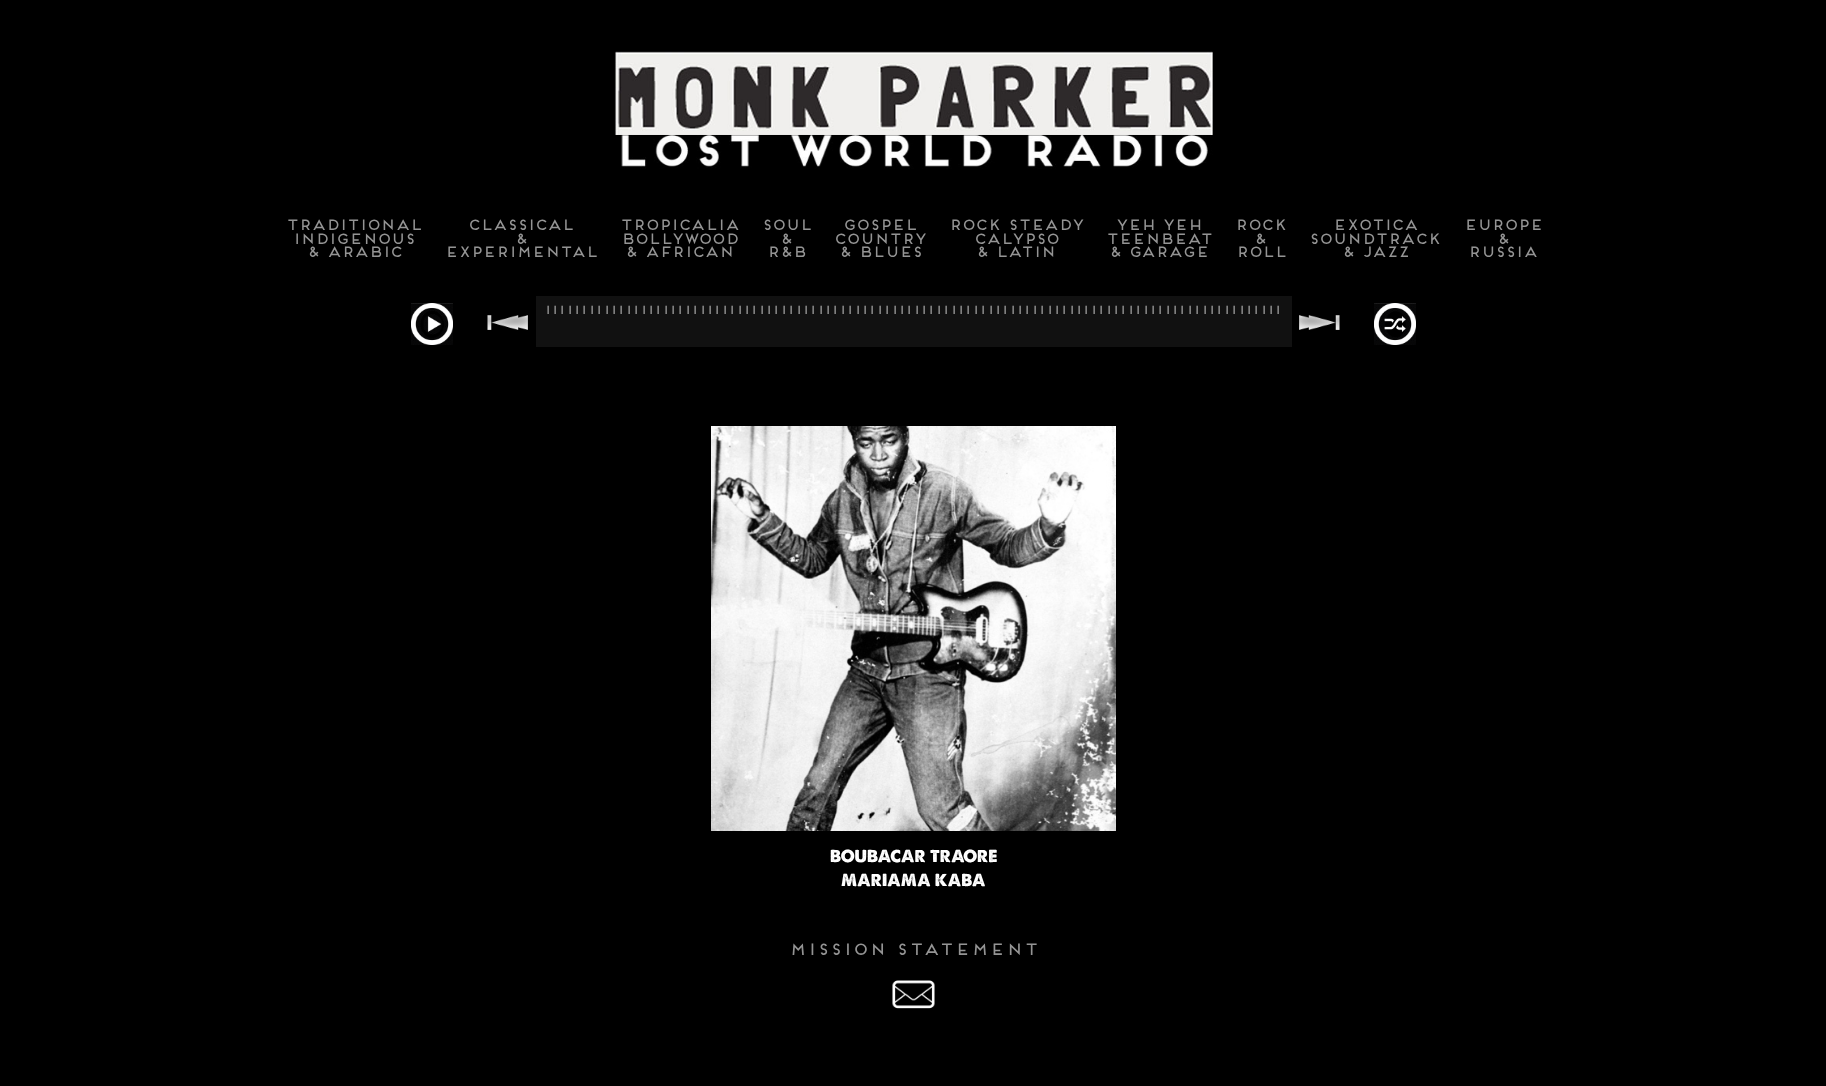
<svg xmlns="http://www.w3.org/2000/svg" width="1826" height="1086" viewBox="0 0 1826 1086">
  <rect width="100%" height="100%" fill="rgb(0,0,0)"/>
  <image x="614" y="51" width="599" height="84" href="pic1.png"/>
  <image x="614" y="134" width="599" height="35" href="pic2.png"/>
  <g font-family="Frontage" font-size="15" letter-spacing="-1.5" fill="rgb(148,148,148)">
    <text x="285" y="230">TRADITIONAL</text>
    <text x="292" y="244">INDIGENOUS</text>
    <text x="306" y="257">&amp; ARABIC</text>
    <text x="467" y="230">CLASSICAL</text>
    <text x="514" y="244">&amp;</text>
    <text x="444" y="257">EXPERIMENTAL</text>
    <text x="619" y="230">TROPICALIA</text>
    <text x="620" y="244">BOLLYWOOD</text>
    <text x="624" y="257">&amp; AFRICAN</text>
    <text x="761" y="230">SOUL</text>
    <text x="779" y="244">&amp;</text>
    <text x="766" y="257">R&amp;B</text>
    <text x="842" y="230">GOSPEL</text>
    <text x="833" y="244">COUNTRY</text>
    <text x="838" y="257">&amp; BLUES</text>
    <text x="948" y="230">ROCK STEADY</text>
    <text x="973" y="244">CALYPSO</text>
    <text x="975" y="257">&amp; LATIN</text>
    <text x="1115" y="230">YEH YEH</text>
    <text x="1105" y="244">TEENBEAT</text>
    <text x="1108" y="257">&amp; GARAGE</text>
    <text x="1234" y="230">ROCK</text>
    <text x="1253" y="244">&amp;</text>
    <text x="1235" y="257">ROLL</text>
    <text x="1332" y="230">EXOTICA</text>
    <text x="1308" y="244">SOUNDTRACK</text>
    <text x="1341" y="257">&amp; JAZZ</text>
    <text x="1463" y="230">EUROPE</text>
    <text x="1496" y="244">&amp;</text>
    <text x="1467" y="257">RUSSIA</text>
  </g>
  <image x="411" y="303" width="42" height="42" href="pic3.png"/>
  <image x="487" y="315" width="41" height="15" href="pic4.png"/>
  <rect x="536" y="296" width="756" height="51" fill="rgb(17,17,17)"/>
  <g font-family="Frontage" font-size="9" fill="rgb(204,204,204)">
    <text x="545" y="313">|</text>
    <text x="552" y="313">|</text>
    <text x="559" y="313">|</text>
    <text x="567" y="313">|</text>
    <text x="574" y="313">|</text>
    <text x="581" y="313">|</text>
    <text x="589" y="313">|</text>
    <text x="596" y="313">|</text>
    <text x="604" y="313">|</text>
    <text x="611" y="313">|</text>
    <text x="618" y="313">|</text>
    <text x="626" y="313">|</text>
    <text x="633" y="313">|</text>
    <text x="641" y="313">|</text>
    <text x="648" y="313">|</text>
    <text x="655" y="313">|</text>
    <text x="663" y="313">|</text>
    <text x="670" y="313">|</text>
    <text x="677" y="313">|</text>
    <text x="685" y="313">|</text>
    <text x="692" y="313">|</text>
    <text x="700" y="313">|</text>
    <text x="707" y="313">|</text>
    <text x="714" y="313">|</text>
    <text x="722" y="313">|</text>
    <text x="729" y="313">|</text>
    <text x="737" y="313">|</text>
    <text x="744" y="313">|</text>
    <text x="751" y="313">|</text>
    <text x="759" y="313">|</text>
    <text x="766" y="313">|</text>
    <text x="773" y="313">|</text>
    <text x="781" y="313">|</text>
    <text x="788" y="313">|</text>
    <text x="796" y="313">|</text>
    <text x="803" y="313">|</text>
    <text x="810" y="313">|</text>
    <text x="818" y="313">|</text>
    <text x="825" y="313">|</text>
    <text x="832" y="313">|</text>
    <text x="840" y="313">|</text>
    <text x="847" y="313">|</text>
    <text x="855" y="313">|</text>
    <text x="862" y="313">|</text>
    <text x="869" y="313">|</text>
    <text x="877" y="313">|</text>
    <text x="884" y="313">|</text>
    <text x="892" y="313">|</text>
    <text x="899" y="313">|</text>
    <text x="906" y="313">|</text>
    <text x="914" y="313">|</text>
    <text x="921" y="313">|</text>
    <text x="928" y="313">|</text>
    <text x="936" y="313">|</text>
    <text x="943" y="313">|</text>
    <text x="951" y="313">|</text>
    <text x="958" y="313">|</text>
    <text x="965" y="313">|</text>
    <text x="973" y="313">|</text>
    <text x="980" y="313">|</text>
    <text x="988" y="313">|</text>
    <text x="995" y="313">|</text>
    <text x="1002" y="313">|</text>
    <text x="1010" y="313">|</text>
    <text x="1017" y="313">|</text>
    <text x="1024" y="313">|</text>
    <text x="1032" y="313">|</text>
    <text x="1039" y="313">|</text>
    <text x="1047" y="313">|</text>
    <text x="1054" y="313">|</text>
    <text x="1061" y="313">|</text>
    <text x="1069" y="313">|</text>
    <text x="1076" y="313">|</text>
    <text x="1083" y="313">|</text>
    <text x="1091" y="313">|</text>
    <text x="1098" y="313">|</text>
    <text x="1106" y="313">|</text>
    <text x="1113" y="313">|</text>
    <text x="1120" y="313">|</text>
    <text x="1128" y="313">|</text>
    <text x="1135" y="313">|</text>
    <text x="1143" y="313">|</text>
    <text x="1150" y="313">|</text>
    <text x="1157" y="313">|</text>
    <text x="1165" y="313">|</text>
    <text x="1172" y="313">|</text>
    <text x="1179" y="313">|</text>
    <text x="1187" y="313">|</text>
    <text x="1194" y="313">|</text>
    <text x="1202" y="313">|</text>
    <text x="1209" y="313">|</text>
    <text x="1216" y="313">|</text>
    <text x="1224" y="313">|</text>
    <text x="1231" y="313">|</text>
    <text x="1239" y="313">|</text>
    <text x="1246" y="313">|</text>
    <text x="1253" y="313">|</text>
    <text x="1261" y="313">|</text>
    <text x="1268" y="313">|</text>
    <text x="1275" y="313">|</text>
  </g>
  <image x="1299" y="315" width="41" height="15" href="pic5.png"/>
  <image x="1374" y="303" width="42" height="42" href="pic6.png"/>
  <image x="711" y="426" width="405" height="405" href="pic7.png"/>
  <g font-family="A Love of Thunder" font-size="16.5" fill="rgb(255,255,255)">
    <text x="830" y="862">BOUBACAR TRAORE</text>
    <text x="841" y="886">MARIAMA KABA</text>
  </g>
  <text x="788" y="955" font-family="Frontage" font-size="16.5" fill="rgb(148,148,148)">MISSION STATEMENT</text>
  <image x="892" y="980" width="43" height="29" href="pic8.png"/>
</svg>
